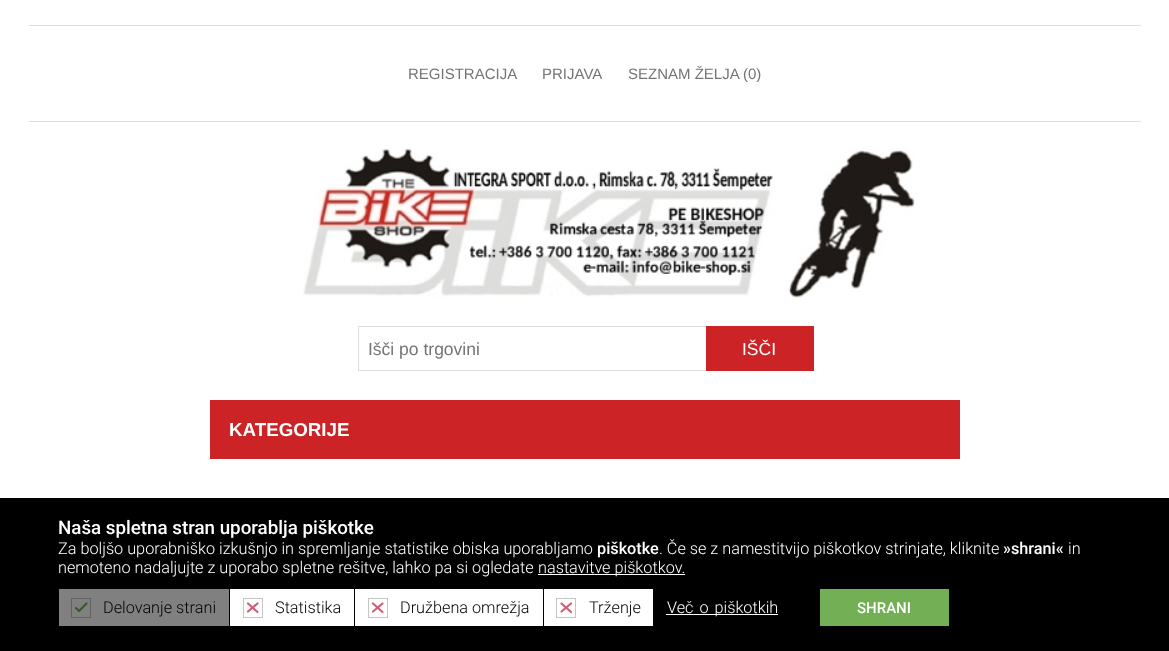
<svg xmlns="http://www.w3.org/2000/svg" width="1169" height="651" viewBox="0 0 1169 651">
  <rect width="100%" height="100%" fill="rgb(255,255,255)"/>
  <rect x="29" y="121" width="1112" height="1" fill="rgb(221,221,221)"/>
  <rect x="29" y="25" width="1112" height="1" fill="rgb(221,221,221)"/>
  <g font-family="Liberation Sans" font-size="15" fill="rgb(117,117,117)">
    <text x="408" y="79">REGISTRACIJA</text>
    <text x="542" y="79">PRIJAVA</text>
    <text x="628" y="79">SEZNAM ŽELJA (0)</text>
  </g>
  <image x="303" y="148" width="612" height="150" href="pic1.png"/>
  <rect x="358.5" y="326.5" width="349" height="44" fill="none" stroke="rgb(221,221,221)"/>
  <text x="368" y="355" font-family="Liberation Sans" font-size="17.5" fill="rgb(117,117,117)">Išči po trgovini</text>
  <rect x="706" y="326" width="108" height="45" fill="rgb(204,35,38)"/>
  <text x="742" y="355" font-family="Liberation Sans" font-size="17.5" fill="rgb(255,255,255)">IŠČI</text>
  <rect x="210" y="400" width="750" height="59" fill="rgb(204,35,38)"/>
  <text x="229" y="436" font-family="Liberation Sans" font-size="18.75" font-weight="bold" fill="rgb(255,255,255)">KATEGORIJE</text>
  <rect x="0" y="498" width="1169" height="153" fill="rgb(0,0,0)"/>
  <text x="58" y="534" font-family="Roboto" font-size="18.75" font-weight="500" fill="rgb(255,255,255)">Naša spletna stran uporablja piškotke</text>
  <text x="58" y="554" font-family="Roboto" font-size="16.25" font-weight="300" fill="rgb(255,255,255)">Za boljšo uporabniško izkušnjo in spremljanje statistike obiska uporabljamo</text>
  <text x="597" y="554" font-family="Roboto" font-size="16.25" font-weight="500" fill="rgb(255,255,255)">piškotke</text>
  <text x="659" y="554" font-family="Roboto" font-size="16.25" font-weight="300" fill="rgb(255,255,255)">. Če se z namestitvijo piškotkov strinjate, kliknite</text>
  <text x="1003" y="554" font-family="Roboto" font-size="16.25" font-weight="500" fill="rgb(255,255,255)">»shrani«</text>
  <g font-family="Roboto" font-size="16.25" font-weight="300" fill="rgb(255,255,255)">
    <text x="1068" y="554">in</text>
    <text x="58" y="573">nemoteno nadaljujte z uporabo spletne rešitve, lahko pa si ogledate</text>
  </g>
  <rect x="538" y="574" width="147" height="1" fill="rgb(255,255,255)"/>
  <text x="538" y="573" font-family="Roboto" font-size="16.25" font-weight="300" fill="rgb(255,255,255)">nastavitve piškotkov.</text>
  <rect x="59" y="589" width="170" height="37" fill="rgb(128,128,128)"/>
  <path d="M86.5 603.5L79 611L76 608" fill="none" stroke="rgb(58,88,43)" stroke-width="2.2" stroke-linecap="round"/>
  <rect x="71.5" y="598.5" width="19" height="19" fill="none" stroke="rgb(99,99,99)"/>
  <text x="103" y="613" font-family="Roboto" font-size="16.25" font-weight="300" fill="rgb(0,0,0)">Delovanje strani</text>
  <rect x="230" y="589" width="124" height="37" fill="rgb(255,255,255)"/>
  <path d="M248 603.5L257.5 612M257.5 603.5L248 611.5" fill="none" stroke="rgb(208,96,121)" stroke-width="2.2" stroke-linecap="round"/>
  <rect x="243.5" y="598.5" width="19" height="19" fill="none" stroke="rgb(198,198,198)"/>
  <text x="275" y="613" font-family="Roboto" font-size="16.25" font-weight="300" fill="rgb(0,0,0)">Statistika</text>
  <rect x="355" y="589" width="188" height="37" fill="rgb(255,255,255)"/>
  <path d="M373 603.5L382.5 612M382.5 603.5L373 611.5" fill="none" stroke="rgb(208,96,121)" stroke-width="2.2" stroke-linecap="round"/>
  <rect x="368.5" y="598.5" width="19" height="19" fill="none" stroke="rgb(198,198,198)"/>
  <text x="400" y="613" font-family="Roboto" font-size="16.25" font-weight="300" fill="rgb(0,0,0)">Družbena omrežja</text>
  <rect x="544" y="589" width="109" height="37" fill="rgb(255,255,255)"/>
  <path d="M561.5 603.5L571 612M571 603.5L561.5 611.5" fill="none" stroke="rgb(208,96,121)" stroke-width="2.2" stroke-linecap="round"/>
  <rect x="556.5" y="598.5" width="19" height="19" fill="none" stroke="rgb(198,198,198)"/>
  <text x="589" y="613" font-family="Roboto" font-size="16.25" font-weight="300" fill="rgb(0,0,0)">Trženje</text>
  <rect x="666" y="614" width="112" height="1" fill="rgb(255,255,255)"/>
  <text x="667" y="613" word-spacing="2" font-family="Roboto" font-size="16.25" font-weight="300" fill="rgb(255,255,255)">Več o piškotkih</text>
  <rect x="820" y="589" width="129" height="37" fill="rgb(115,175,85)"/>
  <text x="857" y="613" font-family="Roboto" font-size="15" font-weight="500" fill="rgb(255,255,255)">SHRANI</text>
</svg>
